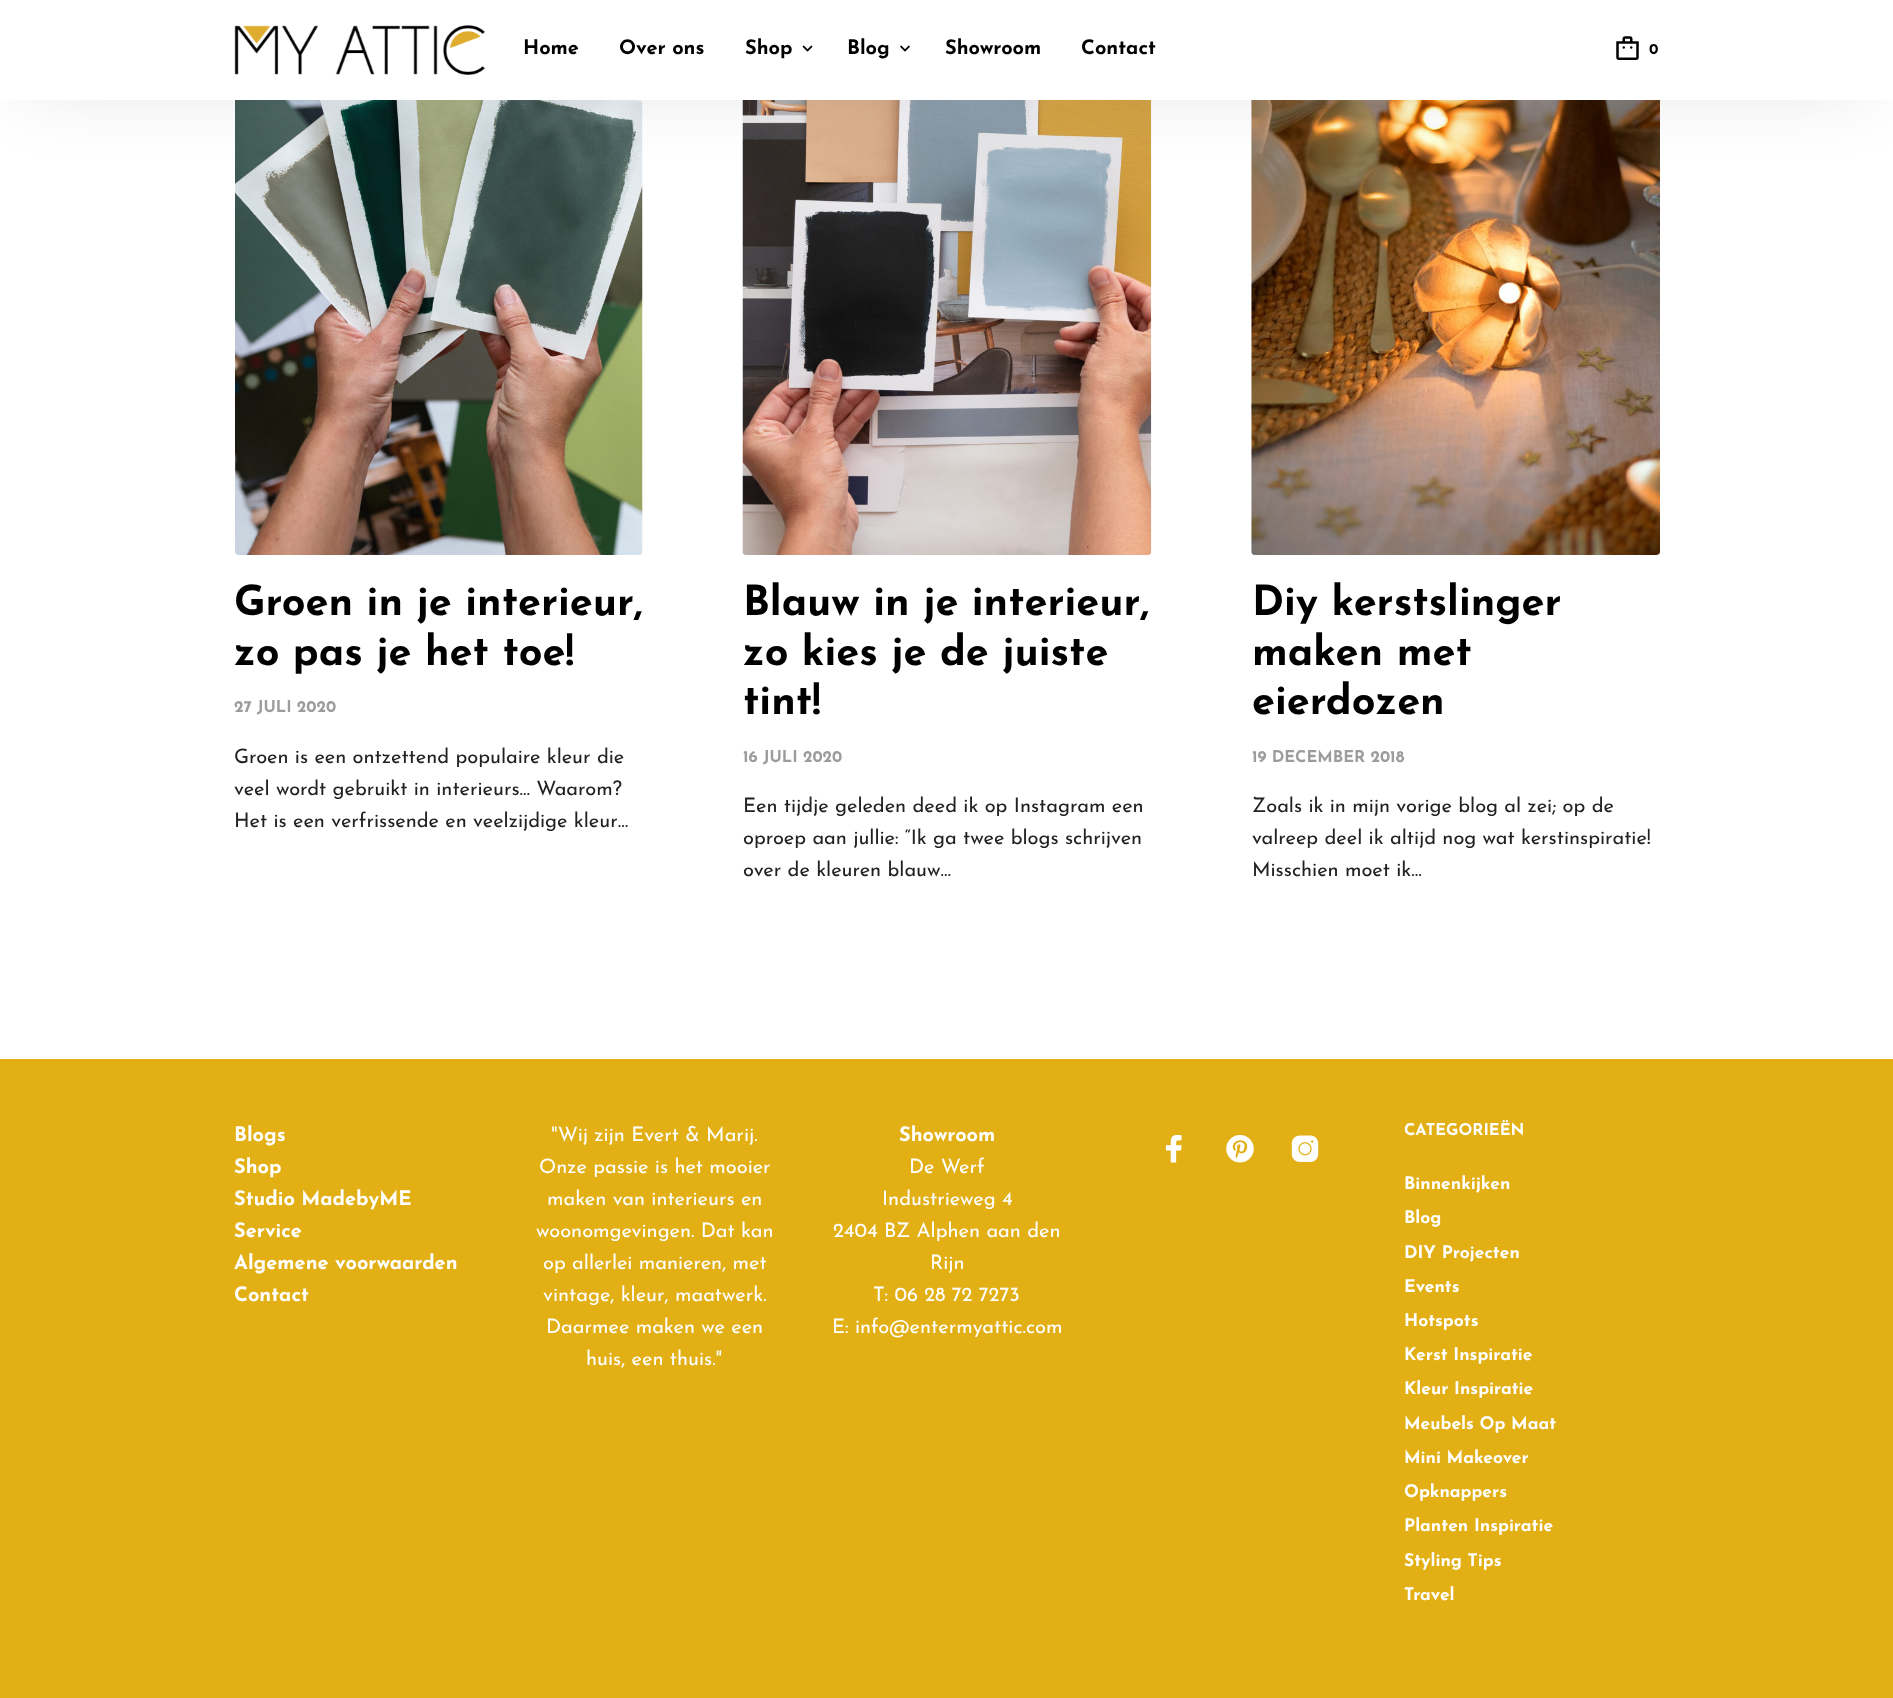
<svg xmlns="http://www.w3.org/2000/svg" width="1893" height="1698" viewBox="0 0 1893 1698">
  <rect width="100%" height="100%" fill="rgb(255,255,255)"/>
  <image x="235" y="100" width="408" height="455" href="pic5.png"/>
  <image x="742" y="100" width="410" height="455" href="pic6.png"/>
  <image x="1251" y="100" width="409" height="455" href="pic7.png"/>
  <rect x="24" y="24" width="1846" height="52" fill="rgba(0,0,0,0.17)" filter="blur(40.5px)"/>
  <rect x="0" y="0" width="1893" height="100" fill="rgb(255,255,255)"/>
  <image x="234" y="25" width="251" height="50" href="pic1.png"/>
  <g font-family="Josefin Sans" font-size="20" font-weight="bold" fill="rgb(0,0,0)">
    <text x="523" y="54">Home</text>
    <text x="619" y="54">Over ons</text>
    <text x="745" y="54">Shop</text>
  </g>
  <image x="802" y="45" width="11" height="7" href="pic2.png"/>
  <text x="847" y="54" font-family="Josefin Sans" font-size="20" font-weight="bold" fill="rgb(0,0,0)">Blog</text>
  <image x="900" y="45" width="10" height="7" href="pic3.png"/>
  <g font-family="Josefin Sans" font-size="20" font-weight="bold" fill="rgb(0,0,0)">
    <text x="945" y="54">Showroom</text>
    <text x="1081" y="54">Contact</text>
  </g>
  <image x="1616" y="36" width="23" height="24" href="pic4.png"/>
  <text x="1649" y="54" font-family="Josefin Sans" font-size="15" font-weight="bold" fill="rgb(0,0,0)">0</text>
  <g font-family="Josefin Sans" font-size="41.5" font-weight="bold" fill="rgb(0,0,0)">
    <text>
      <tspan x="234" y="615">Groen in je interieur,</tspan>
      <tspan x="234" y="665">zo pas je het toe!</tspan>
    </text>
  </g>
  <text x="234" y="712" font-family="Josefin Sans" font-size="16.25" font-weight="bold" fill="rgb(156,156,156)">27 JULI 2020</text>
  <g font-family="Josefin Sans" font-size="20" fill="rgb(34,34,34)">
    <text>
      <tspan x="234" y="763">Groen is een ontzettend populaire kleur die</tspan>
      <tspan x="234" y="795">veel wordt gebruikt in interieurs… Waarom?</tspan>
      <tspan x="234" y="827">Het is een verfrissende en veelzijdige kleur…</tspan>
    </text>
  </g>
  <g font-family="Josefin Sans" font-size="41.5" font-weight="bold" fill="rgb(0,0,0)">
    <text>
      <tspan x="743" y="615">Blauw in je interieur,</tspan>
      <tspan x="743" y="665">zo kies je de juiste</tspan>
      <tspan x="743" y="714">tint!</tspan>
    </text>
  </g>
  <text x="743" y="762" font-family="Josefin Sans" font-size="16.25" font-weight="bold" fill="rgb(156,156,156)">16 JULI 2020</text>
  <g font-family="Josefin Sans" font-size="20" fill="rgb(34,34,34)">
    <text>
      <tspan x="743" y="812">Een tijdje geleden deed ik op Instagram een</tspan>
      <tspan x="743" y="844">oproep aan jullie: “Ik ga twee blogs schrijven</tspan>
      <tspan x="743" y="876">over de kleuren blauw…</tspan>
    </text>
  </g>
  <g font-family="Josefin Sans" font-size="41.5" font-weight="bold" fill="rgb(0,0,0)">
    <text>
      <tspan x="1252" y="615">Diy kerstslinger</tspan>
      <tspan x="1252" y="665">maken met</tspan>
      <tspan x="1252" y="714">eierdozen</tspan>
    </text>
  </g>
  <text x="1252" y="762" font-family="Josefin Sans" font-size="16.25" font-weight="bold" fill="rgb(156,156,156)">19 DECEMBER 2018</text>
  <g font-family="Josefin Sans" font-size="20" fill="rgb(34,34,34)">
    <text>
      <tspan x="1252" y="812">Zoals ik in mijn vorige blog al zei; op de</tspan>
      <tspan x="1252" y="844">valreep deel ik altijd nog wat kerstinspiratie!</tspan>
      <tspan x="1252" y="876">Misschien moet ik…</tspan>
    </text>
  </g>
  <rect x="0" y="1059" width="1893" height="639" fill="rgb(226,175,21)"/>
  <g font-family="Josefin Sans" font-size="20" font-weight="bold" fill="rgb(255,255,255)">
    <text>
      <tspan x="234" y="1141">Blogs</tspan>
      <tspan x="234" y="1173">Shop</tspan>
      <tspan x="234" y="1205">Studio MadebyME</tspan>
      <tspan x="234" y="1237">Service</tspan>
      <tspan x="234" y="1269">Algemene voorwaarden</tspan>
      <tspan x="234" y="1301">Contact</tspan>
    </text>
  </g>
  <g font-family="Josefin Sans" font-size="20" fill="rgb(255,255,255)">
    <text x="551" y="1141">"Wij zijn Evert &amp; Marij.</text>
    <text x="539" y="1173">Onze passie is het mooier</text>
    <text x="547" y="1205">maken van interieurs en</text>
    <text x="536" y="1237">woonomgevingen. Dat kan</text>
    <text>
      <tspan x="543" y="1269">op allerlei manieren, met</tspan>
      <tspan x="543" y="1301">vintage, kleur, maatwerk.</tspan>
    </text>
    <text x="546" y="1333">Daarmee maken we een</text>
    <text x="586" y="1365">huis, een thuis."</text>
  </g>
  <text x="899" y="1141" font-family="Josefin Sans" font-size="20" font-weight="bold" fill="rgb(255,255,255)">Showroom</text>
  <g font-family="Josefin Sans" font-size="20" fill="rgb(255,255,255)">
    <text x="909" y="1173">De Werf</text>
    <text x="882" y="1205">Industrieweg 4</text>
    <text x="833" y="1237">2404 BZ Alphen aan den</text>
    <text x="930" y="1269">Rijn</text>
    <text x="873" y="1301">T: 06 28 72 7273</text>
    <text x="832" y="1333">E: info@entermyattic.com</text>
  </g>
  <image x="1165" y="1134" width="17" height="29" href="pic8.png"/>
  <image x="1226" y="1135" width="28" height="28" href="pic9.png"/>
  <image x="1291" y="1135" width="28" height="27" href="pic10.png"/>
  <text x="1404" y="1135" font-family="Josefin Sans" font-size="16.25" font-weight="bold" fill="rgb(255,255,255)">CATEGORIEËN</text>
  <g font-family="Josefin Sans" font-size="17.5" font-weight="bold" fill="rgb(255,255,255)">
    <text>
      <tspan x="1404" y="1189">Binnenkijken</tspan>
      <tspan x="1404" y="1223">Blog</tspan>
    </text>
    <text>
      <tspan x="1404" y="1258">DIY Projecten</tspan>
      <tspan x="1404" y="1292">Events</tspan>
      <tspan x="1404" y="1326">Hotspots</tspan>
      <tspan x="1404" y="1360">Kerst Inspiratie</tspan>
      <tspan x="1404" y="1394">Kleur Inspiratie</tspan>
    </text>
    <text>
      <tspan x="1404" y="1429">Meubels Op Maat</tspan>
      <tspan x="1404" y="1463">Mini Makeover</tspan>
      <tspan x="1404" y="1497">Opknappers</tspan>
      <tspan x="1404" y="1531">Planten Inspiratie</tspan>
    </text>
    <text>
      <tspan x="1404" y="1566">Styling Tips</tspan>
      <tspan x="1404" y="1600">Travel</tspan>
    </text>
  </g>
</svg>
